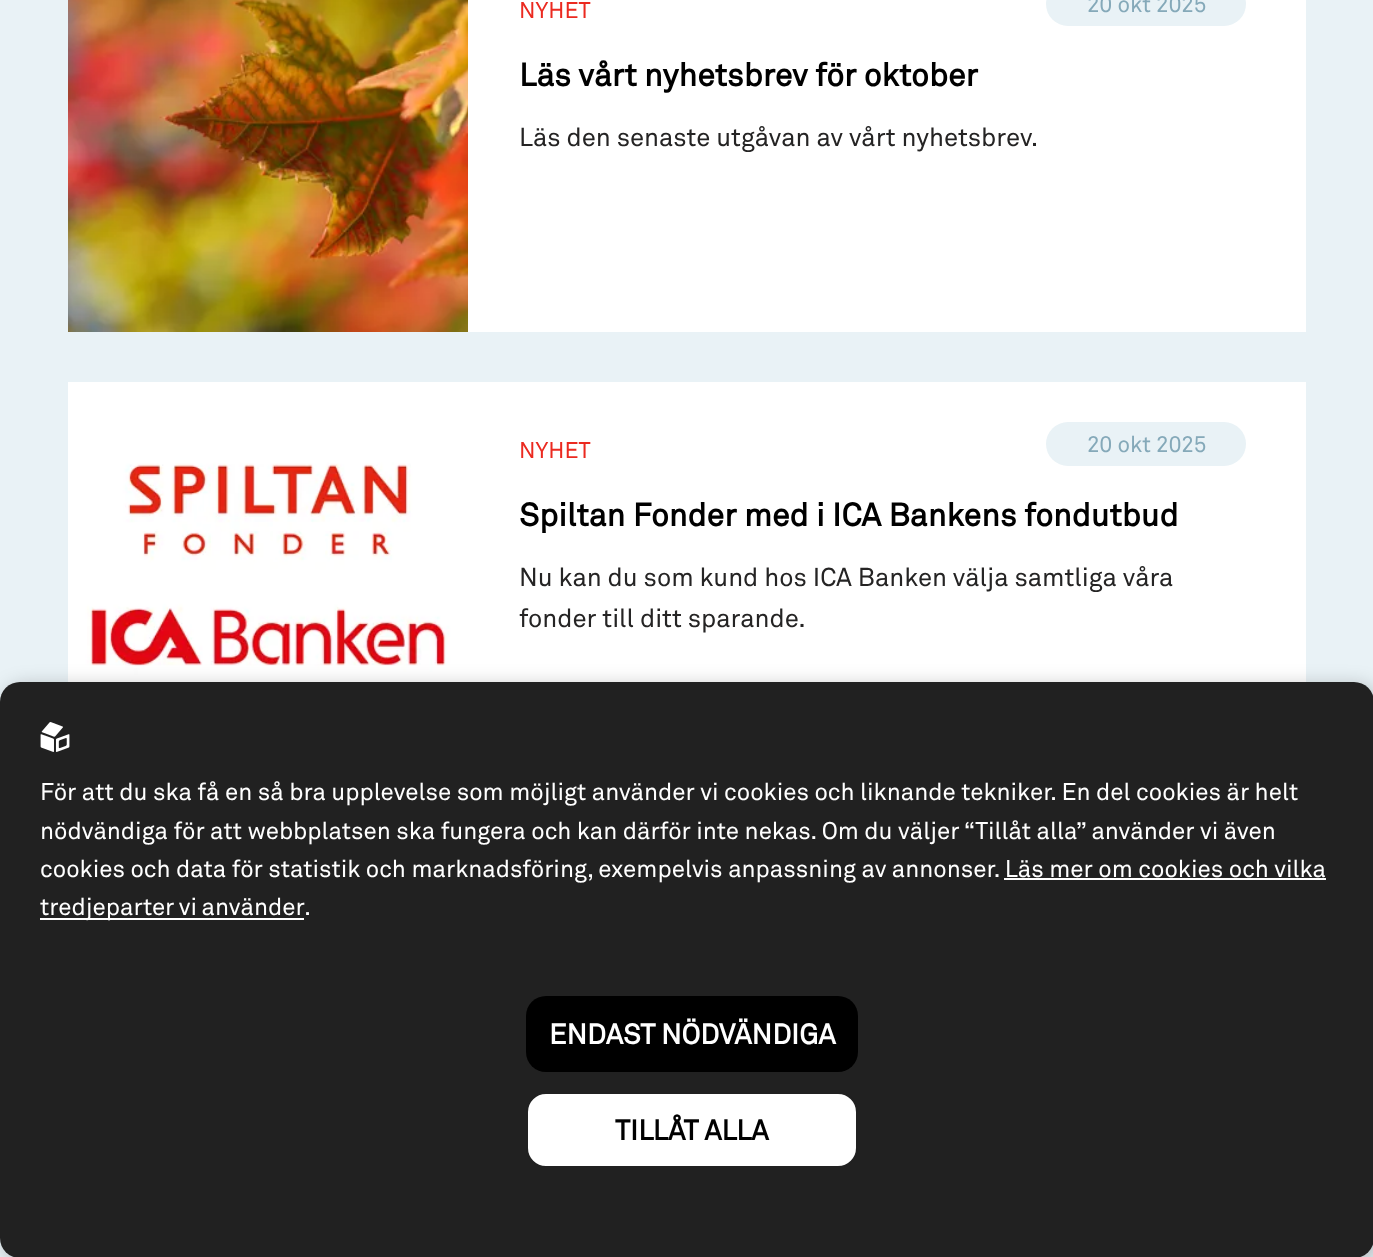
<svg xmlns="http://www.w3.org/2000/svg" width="1373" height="1257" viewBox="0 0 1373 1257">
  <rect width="100%" height="100%" fill="rgb(233,242,246)"/>
  <rect x="468" y="0" width="838" height="332" fill="rgb(255,255,255)"/>
  <image x="68" y="0" width="400" height="332" href="pic1.png"/>
  <text x="519" y="18" font-family="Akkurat" font-size="22.5" fill="rgb(235,42,32)">NYHET</text>
  <rect x="1046" y="-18" width="200" height="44" rx="22" fill="rgb(233,242,246)"/>
  <text x="1087" y="12" font-family="Akkurat" font-size="22.5" fill="rgb(133,169,185)">20 okt 2025</text>
  <text x="519" y="86" font-family="Akkurat" font-size="32" font-weight="bold" fill="rgb(0,0,0)">Läs vårt nyhetsbrev för oktober</text>
  <text x="519" y="146" font-family="Akkurat" font-size="25.6" fill="rgb(37,36,36)">Läs den senaste utgåvan av vårt nyhetsbrev.</text>
  <rect x="468" y="382" width="838" height="300" fill="rgb(255,255,255)"/>
  <image x="68" y="382" width="400" height="300" href="pic2.png"/>
  <text x="519" y="458" font-family="Akkurat" font-size="22.5" fill="rgb(235,42,32)">NYHET</text>
  <rect x="1046" y="422" width="200" height="44" rx="22" fill="rgb(233,242,246)"/>
  <text x="1087" y="452" font-family="Akkurat" font-size="22.5" fill="rgb(133,169,185)">20 okt 2025</text>
  <text x="519" y="526" font-family="Akkurat" font-size="32" font-weight="bold" fill="rgb(0,0,0)">Spiltan Fonder med i ICA Bankens fondutbud</text>
  <g font-family="Akkurat" font-size="25.6" fill="rgb(37,36,36)">
    <text>
      <tspan x="519" y="586">Nu kan du som kund hos ICA Banken välja samtliga våra</tspan>
      <tspan x="519" y="627">fonder till ditt sparande.</tspan>
    </text>
  </g>
  <rect x="4" y="686" width="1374" height="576" rx="20" fill="rgba(0,0,0,0.25)" filter="blur(10px)"/>
  <rect x="0" y="682" width="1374" height="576" rx="20" fill="rgb(33,33,33)"/>
  <image x="40" y="722" width="30" height="30" href="pic3.png"/>
  <g font-family="Akkurat" font-size="24" fill="rgb(255,255,255)">
    <text>
      <tspan x="40" y="800">För att du ska få en så bra upplevelse som möjligt använder vi cookies och liknande tekniker. En del cookies är helt</tspan>
      <tspan x="40" y="839">nödvändiga för att webbplatsen ska fungera och kan därför inte nekas. Om du väljer “Tillåt alla” använder vi även</tspan>
      <tspan x="40" y="877">cookies och data för statistik och marknadsföring, exempelvis anpassning av annonser. Läs mer om cookies och vilka</tspan>
    </text>
  </g>
  <rect x="40" y="918" width="264" height="2" fill="rgb(255,255,255)"/>
  <text x="40" y="915" word-spacing="-1" font-family="Akkurat" font-size="24" fill="rgb(255,255,255)">tredjeparter vi använder</text>
  <rect x="1004" y="878" width="322" height="2" fill="rgb(255,255,255)"/>
  <text x="304" y="915" font-family="Akkurat" font-size="24" fill="rgb(255,255,255)">.</text>
  <rect x="526" y="996" width="332" height="76" rx="20" fill="rgb(0,0,0)"/>
  <text x="549" y="1044" font-family="Akkurat" font-size="28" font-weight="bold" fill="rgb(255,255,255)">ENDAST NÖDVÄNDIGA</text>
  <rect x="527" y="1093" width="330" height="74" rx="19" fill="rgb(255,255,255)" stroke="rgb(33,33,33)" stroke-width="2"/>
  <text x="615" y="1140" font-family="Akkurat" font-size="28" font-weight="bold" fill="rgb(0,0,0)">TILLÅT ALLA</text>
</svg>
